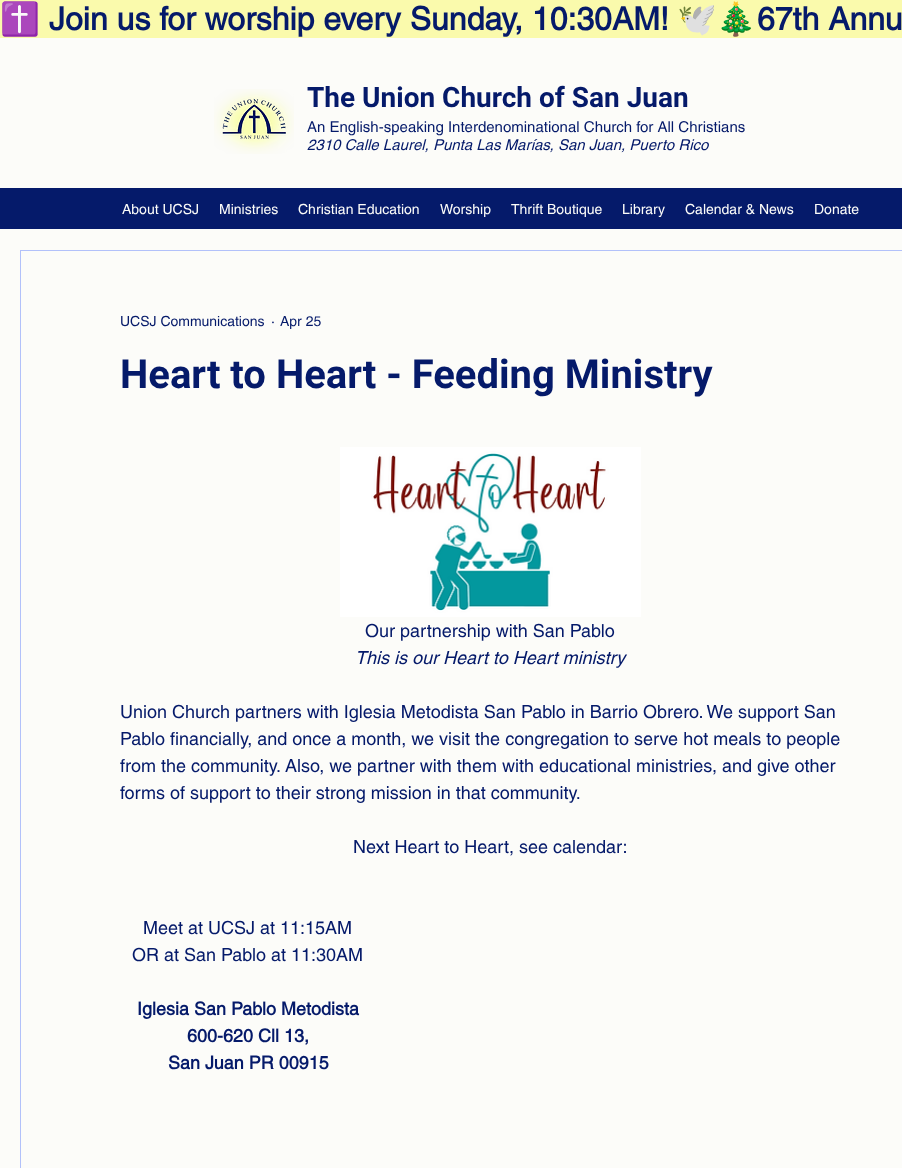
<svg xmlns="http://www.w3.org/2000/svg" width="902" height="1168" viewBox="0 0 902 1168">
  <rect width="100%" height="100%" fill="rgb(252,252,249)"/>
  <rect x="0" y="0" width="902" height="38" fill="rgb(250,250,172)"/>
  <text x="0" y="30" font-family="Noto Color Emoji" font-size="32" font-weight="bold" fill="rgb(5,26,106)">✝️</text>
  <text x="49" y="30" font-family="helvetica" font-size="32" font-weight="bold" fill="rgb(5,26,106)">Join us for worship every Sunday, 10:30AM!</text>
  <text x="677" y="30" font-family="Noto Color Emoji" font-size="32" font-weight="bold" fill="rgb(5,26,106)">🕊️🎄</text>
  <text x="757" y="30" font-family="helvetica" font-size="32" font-weight="bold" fill="rgb(5,26,106)">67th Annu</text>
  <image x="214" y="89" width="80" height="65" href="pic1.png"/>
  <text x="307" y="107" font-family="Roboto" font-size="28" font-weight="bold" fill="rgb(5,26,106)">The Union Church of San Juan</text>
  <text x="307" y="132" font-family="helvetica" font-size="15" fill="rgb(5,26,106)">An English-speaking Interdenominational Church for All Christians</text>
  <text x="307" y="150" font-family="helvetica" font-size="15" font-style="italic" fill="rgb(5,26,106)">2310 Calle Laurel, Punta Las Marías, San Juan, Puerto Rico</text>
  <rect x="0" y="188" width="902" height="41" fill="rgb(5,26,106)"/>
  <g font-family="helvetica" font-size="14" fill="rgb(252,252,249)">
    <text x="122" y="214">About UCSJ</text>
    <text x="219" y="214">Ministries</text>
    <text x="298" y="214">Christian Education</text>
    <text x="440" y="214">Worship</text>
    <text x="511" y="214">Thrift Boutique</text>
    <text x="622" y="214">Library</text>
    <text x="685" y="214">Calendar &amp; News</text>
    <text x="814" y="214">Donate</text>
  </g>
  <rect x="20.5" y="250.5" width="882" height="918" fill="none" stroke="rgb(178,193,250)"/>
  <g font-family="helvetica" font-size="14" fill="rgb(5,26,106)">
    <text x="120" y="326">UCSJ Communications</text>
    <text x="271" y="326">·</text>
    <text x="280" y="326">Apr 25</text>
  </g>
  <text x="120" y="388" font-family="Roboto" font-size="40" font-weight="bold" fill="rgb(5,26,106)">Heart to Heart - Feeding Ministry</text>
  <image x="340" y="447" width="301" height="170" href="pic2.png"/>
  <text x="365" y="637" font-family="helvetica" font-size="18" fill="rgb(5,26,106)">Our partnership with San Pablo</text>
  <text x="355" y="664" font-family="helvetica" font-size="18" font-style="italic" fill="rgb(5,26,106)">This is our Heart to Heart ministry</text>
  <g font-family="helvetica" font-size="18" fill="rgb(5,26,106)">
    <text>
      <tspan x="120" y="718">Union Church partners with Iglesia Metodista San Pablo in Barrio Obrero. We support San</tspan>
      <tspan x="120" y="745">Pablo financially, and once a month, we visit the congregation to serve hot meals to people</tspan>
      <tspan x="120" y="772">from the community. Also, we partner with them with educational ministries, and give other</tspan>
      <tspan x="120" y="799">forms of support to their strong mission in that community.</tspan>
    </text>
    <text x="353" y="853">Next Heart to Heart, see calendar:</text>
    <text x="143" y="934">Meet at UCSJ at 11:15AM</text>
    <text x="132" y="961">OR at San Pablo at 11:30AM</text>
  </g>
  <g font-family="helvetica" font-size="18" font-weight="bold" fill="rgb(5,26,106)">
    <text x="137" y="1015">Iglesia San Pablo Metodista</text>
    <text x="187" y="1042">600-620 Cll 13,</text>
    <text x="168" y="1069">San Juan PR 00915</text>
  </g>
</svg>
